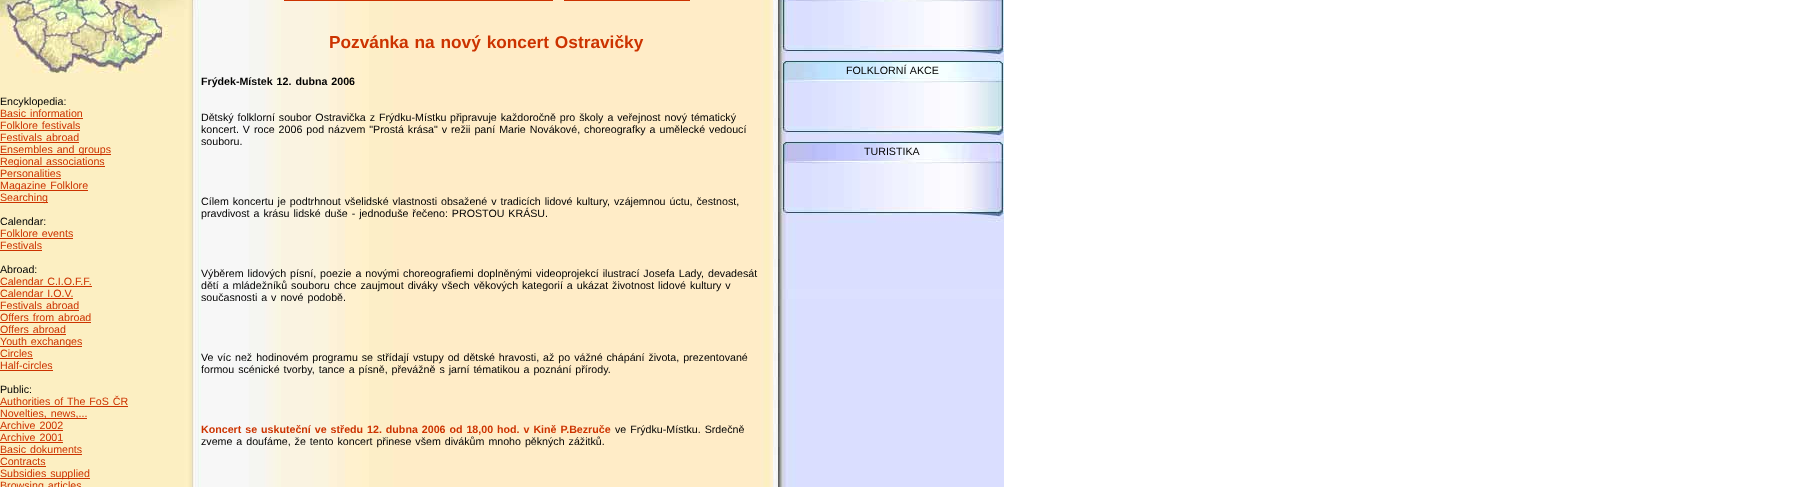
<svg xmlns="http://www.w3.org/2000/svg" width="1813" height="487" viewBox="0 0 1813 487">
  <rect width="100%" height="100%" fill="rgb(255,255,255)"/>
  <image x="0" y="0" width="201" height="487" href="pic1.png"/>
  <image x="0" y="0" width="199" height="74" href="pic2.png"/>
  <text x="0" y="105" font-family="Liberation Sans" font-size="10.67" fill="rgb(0,0,0)">Encyklopedia:</text>
  <text x="0" y="117" word-spacing="1" font-family="Liberation Sans" font-size="10.67" fill="rgb(204,51,0)">Basic information</text>
  <rect x="0" y="118" width="83" height="1" fill="rgb(204,51,0)"/>
  <text x="0" y="129" word-spacing="1" font-family="Liberation Sans" font-size="10.67" fill="rgb(204,51,0)">Folklore festivals</text>
  <rect x="0" y="130" width="80" height="1" fill="rgb(204,51,0)"/>
  <text x="0" y="141" word-spacing="1" font-family="Liberation Sans" font-size="10.67" fill="rgb(204,51,0)">Festivals abroad</text>
  <rect x="0" y="142" width="79" height="1" fill="rgb(204,51,0)"/>
  <rect x="0" y="154" width="111" height="1" fill="rgb(204,51,0)"/>
  <text x="0" y="153" word-spacing="1" font-family="Liberation Sans" font-size="10.67" fill="rgb(204,51,0)">Ensembles and groups</text>
  <rect x="0" y="166" width="105" height="1" fill="rgb(204,51,0)"/>
  <g font-family="Liberation Sans" font-size="10.67" fill="rgb(204,51,0)">
    <text>
      <tspan x="0" y="165" word-spacing="1">Regional associations</tspan>
      <tspan x="0" y="177">Personalities</tspan>
    </text>
  </g>
  <rect x="0" y="178" width="61" height="1" fill="rgb(204,51,0)"/>
  <rect x="0" y="190" width="88" height="1" fill="rgb(204,51,0)"/>
  <text x="0" y="189" word-spacing="1" font-family="Liberation Sans" font-size="10.67" fill="rgb(204,51,0)">Magazine Folklore</text>
  <rect x="0" y="202" width="48" height="1" fill="rgb(204,51,0)"/>
  <text x="0" y="201" font-family="Liberation Sans" font-size="10.67" fill="rgb(204,51,0)">Searching</text>
  <text x="0" y="225" font-family="Liberation Sans" font-size="10.67" fill="rgb(0,0,0)">Calendar:</text>
  <text x="0" y="237" word-spacing="1" font-family="Liberation Sans" font-size="10.67" fill="rgb(204,51,0)">Folklore events</text>
  <rect x="0" y="238" width="73" height="1" fill="rgb(204,51,0)"/>
  <text x="0" y="249" font-family="Liberation Sans" font-size="10.67" fill="rgb(204,51,0)">Festivals</text>
  <rect x="0" y="250" width="42" height="1" fill="rgb(204,51,0)"/>
  <text x="0" y="273" font-family="Liberation Sans" font-size="10.67" fill="rgb(0,0,0)">Abroad:</text>
  <text x="0" y="285" word-spacing="1" font-family="Liberation Sans" font-size="10.67" fill="rgb(204,51,0)">Calendar C.I.O.F.F.</text>
  <rect x="0" y="286" width="92" height="1" fill="rgb(204,51,0)"/>
  <text x="0" y="297" word-spacing="1" font-family="Liberation Sans" font-size="10.67" fill="rgb(204,51,0)">Calendar I.O.V.</text>
  <rect x="0" y="298" width="73" height="1" fill="rgb(204,51,0)"/>
  <text x="0" y="309" word-spacing="1" font-family="Liberation Sans" font-size="10.67" fill="rgb(204,51,0)">Festivals abroad</text>
  <rect x="0" y="310" width="79" height="1" fill="rgb(204,51,0)"/>
  <text x="0" y="321" word-spacing="1" font-family="Liberation Sans" font-size="10.67" fill="rgb(204,51,0)">Offers from abroad</text>
  <rect x="0" y="322" width="91" height="1" fill="rgb(204,51,0)"/>
  <text x="0" y="333" word-spacing="1" font-family="Liberation Sans" font-size="10.67" fill="rgb(204,51,0)">Offers abroad</text>
  <rect x="0" y="334" width="66" height="1" fill="rgb(204,51,0)"/>
  <rect x="0" y="346" width="82" height="1" fill="rgb(204,51,0)"/>
  <g font-family="Liberation Sans" font-size="10.67" fill="rgb(204,51,0)">
    <text>
      <tspan x="0" y="345" word-spacing="1">Youth exchanges</tspan>
      <tspan x="0" y="357">Circles</tspan>
    </text>
  </g>
  <rect x="0" y="358" width="33" height="1" fill="rgb(204,51,0)"/>
  <text x="0" y="369" font-family="Liberation Sans" font-size="10.67" fill="rgb(204,51,0)">Half-circles</text>
  <rect x="0" y="370" width="53" height="1" fill="rgb(204,51,0)"/>
  <text x="0" y="393" font-family="Liberation Sans" font-size="10.67" fill="rgb(0,0,0)">Public:</text>
  <text x="0" y="405" word-spacing="1" font-family="Liberation Sans" font-size="10.67" fill="rgb(204,51,0)">Authorities of The FoS ČR</text>
  <rect x="0" y="406" width="128" height="1" fill="rgb(204,51,0)"/>
  <rect x="0" y="418" width="87" height="1" fill="rgb(204,51,0)"/>
  <g font-family="Liberation Sans" font-size="10.67" fill="rgb(204,51,0)">
    <text>
      <tspan x="0" y="417" word-spacing="1">Novelties, news,...</tspan>
      <tspan x="0" y="429" word-spacing="1">Archive 2002</tspan>
    </text>
  </g>
  <rect x="0" y="430" width="63" height="1" fill="rgb(204,51,0)"/>
  <text x="0" y="441" word-spacing="1" font-family="Liberation Sans" font-size="10.67" fill="rgb(204,51,0)">Archive 2001</text>
  <rect x="0" y="442" width="63" height="1" fill="rgb(204,51,0)"/>
  <text x="0" y="453" word-spacing="1" font-family="Liberation Sans" font-size="10.67" fill="rgb(204,51,0)">Basic dokuments</text>
  <rect x="0" y="454" width="82" height="1" fill="rgb(204,51,0)"/>
  <text x="0" y="465" font-family="Liberation Sans" font-size="10.67" fill="rgb(204,51,0)">Contracts</text>
  <rect x="0" y="466" width="46" height="1" fill="rgb(204,51,0)"/>
  <rect x="0" y="478" width="90" height="1" fill="rgb(204,51,0)"/>
  <g font-family="Liberation Sans" font-size="10.67" fill="rgb(204,51,0)">
    <text>
      <tspan x="0" y="477" word-spacing="1">Subsidies supplied</tspan>
      <tspan x="0" y="489" word-spacing="1">Browsing articles</tspan>
    </text>
  </g>
  <image x="201" y="0" width="572" height="487" href="pic3.png"/>
  <rect x="284" y="0" width="269" height="1" fill="rgb(204,51,0)"/>
  <rect x="564" y="0" width="126" height="1" fill="rgb(204,51,0)"/>
  <text x="329" y="48" word-spacing="1" font-family="Liberation Sans" font-size="17.3" font-weight="bold" fill="rgb(204,51,0)">Pozvánka na nový koncert Ostravičky</text>
  <text x="201" y="85" word-spacing="1" font-family="Liberation Sans" font-size="10.67" font-weight="bold" fill="rgb(0,0,0)">Frýdek-Místek 12. dubna 2006</text>
  <g font-family="Liberation Sans" font-size="10.67" fill="rgb(0,0,0)">
    <text x="201" y="121" word-spacing="1">Dětský folklorní soubor Ostravička z Frýdku-Místku</text>
    <text x="450" y="121" word-spacing="1">připravuje každoročně pro školy a veřejnost nový tématický</text>
    <text>
      <tspan x="201" y="133" word-spacing="1">koncert. V roce 2006 pod názvem "Prostá krása" v režii paní Marie Novákové, choreografky a umělecké vedoucí</tspan>
      <tspan x="201" y="145">souboru.</tspan>
    </text>
    <text>
      <tspan x="201" y="205" word-spacing="1">Cílem koncertu je podtrhnout všelidské vlastnosti obsažené v tradicích lidové kultury, vzájemnou úctu, čestnost,</tspan>
      <tspan x="201" y="217" word-spacing="1">pravdivost a krásu lidské duše - jednoduše řečeno: PROSTOU KRÁSU.</tspan>
    </text>
    <text>
      <tspan x="201" y="277" word-spacing="1">Výběrem lidových písní, poezie a novými choreografiemi doplněnými videoprojekcí ilustrací Josefa Lady, devadesát</tspan>
      <tspan x="201" y="289" word-spacing="1">dětí a mládežníků souboru</tspan>
    </text>
    <text x="334" y="289" word-spacing="1">chce zaujmout diváky všech věkových kategorií a ukázat životnost lidové kultury v</text>
    <text x="201" y="301" word-spacing="1">současnosti a v nové podobě.</text>
    <text>
      <tspan x="201" y="361" word-spacing="1">Ve víc než hodinovém programu se střídají vstupy od dětské hravosti, až po vážné chápání života, prezentované</tspan>
      <tspan x="201" y="373" word-spacing="1">formou scénické tvorby, tance a písně, převážně s jarní tématikou a poznání přírody.</tspan>
    </text>
  </g>
  <text x="201" y="433" word-spacing="1" font-family="Liberation Sans" font-size="10.67" font-weight="bold" fill="rgb(204,51,0)">Koncert se uskuteční ve středu 12. dubna 2006 od 18,00 hod. v Kině P.Bezruče</text>
  <g font-family="Liberation Sans" font-size="10.67" fill="rgb(0,0,0)">
    <text x="615" y="433" word-spacing="1">ve Frýdku-Místku. Srdečně</text>
    <text x="201" y="445" word-spacing="1">zveme a doufáme, že tento koncert přinese všem divákům mnoho pěkných zážitků.</text>
  </g>
  <image x="773" y="0" width="7" height="487" href="pic4.png"/>
  <image x="780" y="83" width="224" height="404" href="pic5.png"/>
  <image x="780" y="0" width="224" height="2" href="pic6.png"/>
  <image x="780" y="2" width="224" height="43" href="pic7.png"/>
  <image x="780" y="45" width="224" height="19" href="pic8.png"/>
  <image x="780" y="64" width="224" height="13" href="pic9.png"/>
  <text x="846" y="74" word-spacing="1" font-family="Liberation Sans" font-size="10.67" fill="rgb(0,0,0)">FOLKLORNÍ AKCE</text>
  <image x="780" y="77" width="224" height="6" href="pic10.png"/>
  <image x="781" y="83" width="223" height="43" href="pic11.png"/>
  <image x="780" y="126" width="224" height="19" href="pic12.png"/>
  <image x="781" y="145" width="223" height="13" href="pic13.png"/>
  <text x="864" y="155" font-family="Liberation Sans" font-size="10.67" fill="rgb(0,0,0)">TURISTIKA</text>
  <image x="780" y="158" width="224" height="6" href="pic14.png"/>
  <image x="781" y="164" width="223" height="43" href="pic15.png"/>
  <image x="780" y="207" width="224" height="16" href="pic16.png"/>
</svg>
